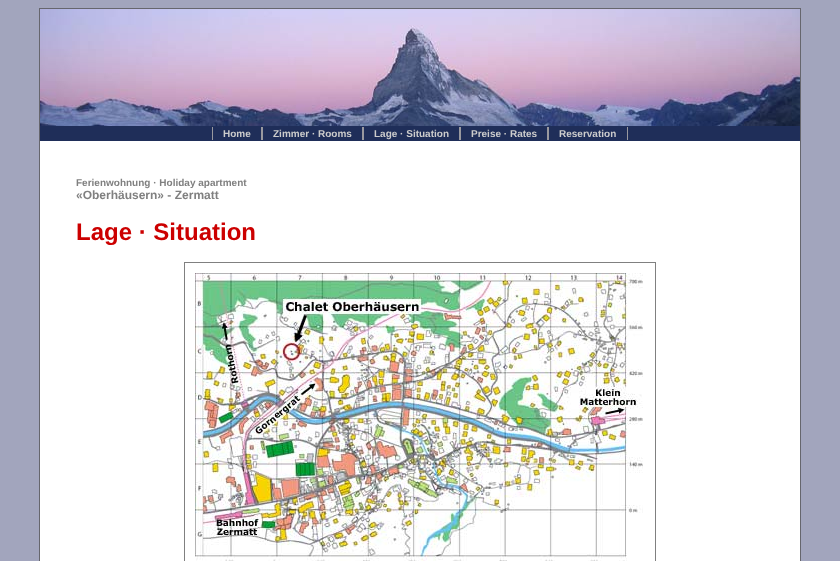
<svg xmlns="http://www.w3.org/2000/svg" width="840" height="561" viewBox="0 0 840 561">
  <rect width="100%" height="100%" fill="rgb(162,165,189)"/>
  <rect x="39.5" y="8.5" width="761" height="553" fill="none" stroke="rgb(102,102,109)"/>
  <image x="40" y="9" width="760" height="117" href="pic1.png"/>
  <rect x="40" y="126" width="760" height="15" fill="rgb(31,46,89)"/>
  <text x="223" y="137" font-family="Liberation Sans" font-size="10" font-weight="bold" fill="rgb(204,204,204)">Home</text>
  <rect x="212" y="127" width="1" height="13" fill="rgb(153,153,159)"/>
  <text x="273" y="137" font-family="Liberation Sans" font-size="10" font-weight="bold" fill="rgb(204,204,204)">Zimmer · Rooms</text>
  <rect x="261" y="127" width="2" height="13" fill="rgb(153,153,159)"/>
  <rect x="362" y="127" width="2" height="13" fill="rgb(153,153,159)"/>
  <g font-family="Liberation Sans" font-size="10" font-weight="bold" fill="rgb(204,204,204)">
    <text x="374" y="137">Lage · Situation</text>
    <text x="471" y="137">Preise · Rates</text>
  </g>
  <rect x="459" y="127" width="2" height="13" fill="rgb(153,153,159)"/>
  <rect x="547" y="127" width="2" height="13" fill="rgb(153,153,159)"/>
  <text x="559" y="137" font-family="Liberation Sans" font-size="10" font-weight="bold" fill="rgb(204,204,204)">Reservation</text>
  <rect x="627" y="127" width="1" height="13" fill="rgb(153,153,159)"/>
  <rect x="40" y="141" width="760" height="420" fill="rgb(255,255,255)"/>
  <text x="76" y="186" font-family="Liberation Sans" font-size="10" font-weight="bold" fill="rgb(128,128,128)">Ferienwohnung · Holiday apartment</text>
  <text x="76" y="199" font-family="Liberation Sans" font-size="12" font-weight="bold" fill="rgb(128,128,128)">«Oberhäusern» - Zermatt</text>
  <text x="76" y="240" font-family="Liberation Sans" font-size="24" font-weight="bold" fill="rgb(204,0,0)">Lage · Situation</text>
  <rect x="184.5" y="262.5" width="471" height="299" fill="none" stroke="rgb(128,128,128)"/>
  <image x="195" y="273" width="448" height="288" href="pic2.png"/>
</svg>
